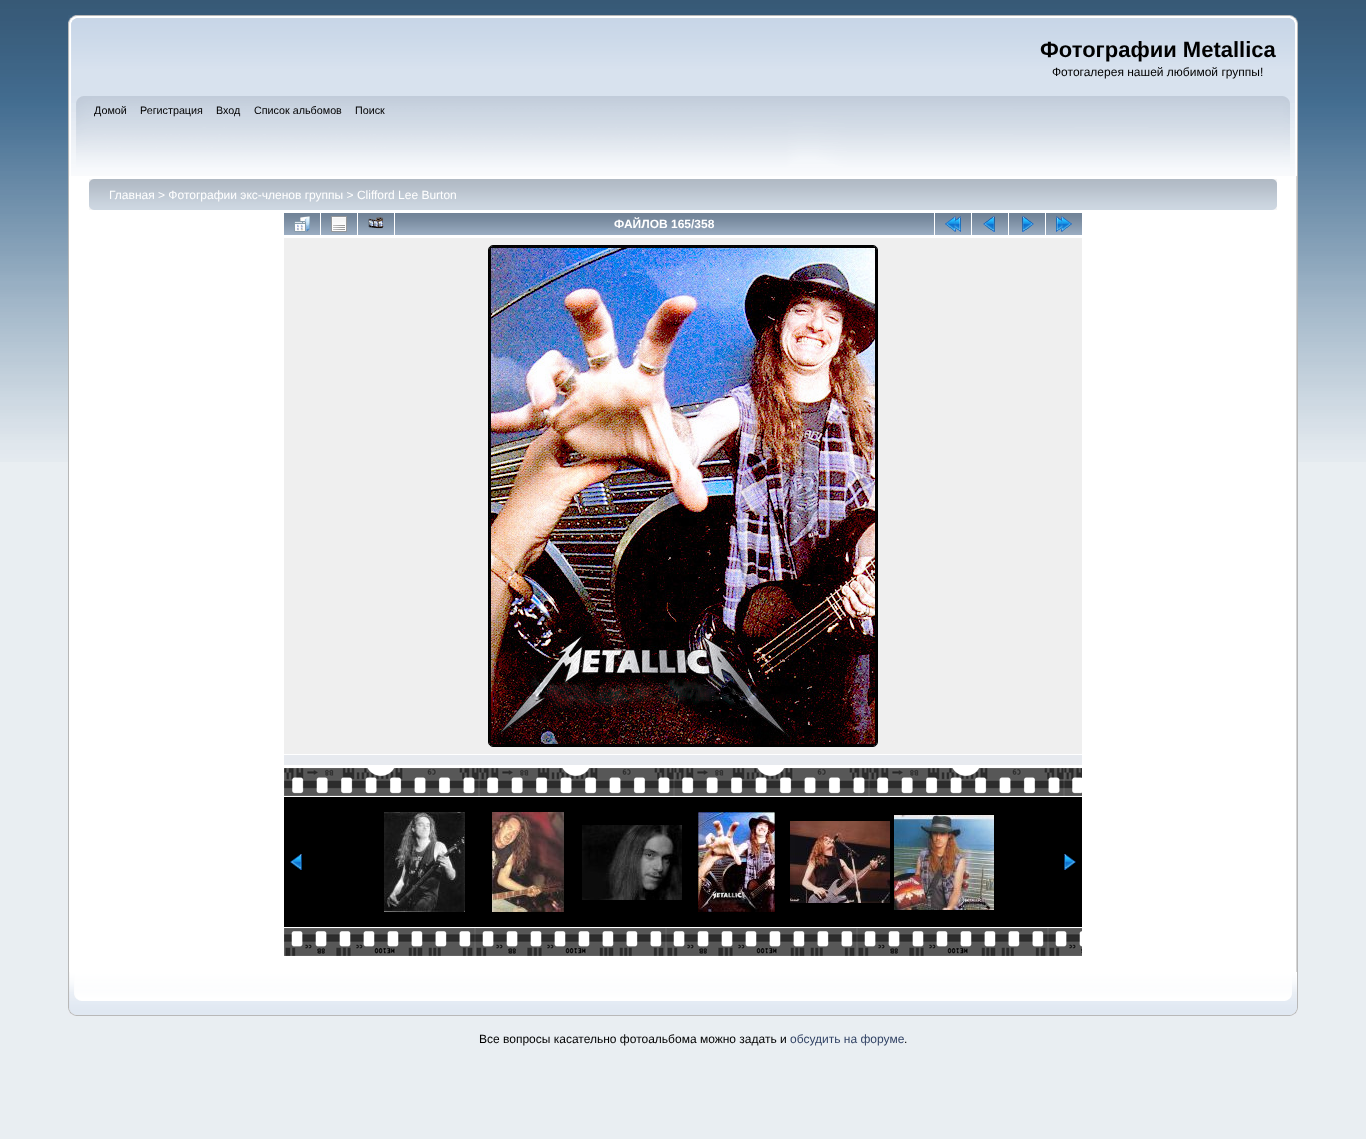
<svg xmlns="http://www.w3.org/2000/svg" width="1366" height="1139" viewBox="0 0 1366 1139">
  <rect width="100%" height="100%" fill="rgb(233,238,242)"/>
  <image x="0" y="0" width="1366" height="462" href="pic1.png"/>
  <image x="68" y="15" width="1222" height="81" href="pic2.png"/>
  <image x="1290" y="15" width="8" height="81" href="pic3.png"/>
  <text x="1040" y="57" font-family="Liberation Sans" font-size="22" font-weight="bold" fill="rgb(0,0,0)">Фотографии Metallica</text>
  <text x="1052" y="76" font-family="Liberation Sans" font-size="12" fill="rgb(0,0,0)">Фотогалерея нашей любимой группы!</text>
  <image x="68" y="96" width="1215" height="80" href="pic4.png"/>
  <image x="1283" y="96" width="15" height="80" href="pic5.png"/>
  <g font-family="Liberation Sans" font-size="10.75" fill="rgb(0,0,0)">
    <text x="94" y="114">Домой</text>
    <text x="140" y="114">Регистрация</text>
    <text x="216" y="114">Вход</text>
    <text x="254" y="114">Список альбомов</text>
    <text x="355" y="114">Поиск</text>
  </g>
  <rect x="69" y="176" width="1227" height="796" fill="rgb(255,255,255)"/>
  <rect x="68" y="176" width="1" height="796" fill="rgb(183,183,183)"/>
  <image x="1296" y="176" width="2" height="796" href="pic6.png"/>
  <image x="89" y="179" width="1183" height="31" href="pic7.png"/>
  <image x="1272" y="179" width="5" height="31" href="pic8.png"/>
  <text x="109" y="199" font-family="Liberation Sans" font-size="12" fill="rgb(255,255,255)">Главная &gt; Фотографии экс-членов группы &gt; Clifford Lee Burton</text>
  <image x="284" y="213" width="36" height="22" href="pic9.png"/>
  <image x="294" y="216" width="16" height="16" href="pic10.png"/>
  <image x="321" y="213" width="36" height="22" href="pic9.png"/>
  <image x="331" y="216" width="16" height="16" href="pic11.png"/>
  <image x="358" y="213" width="36" height="22" href="pic9.png"/>
  <image x="368" y="217" width="16" height="12" href="pic12.png"/>
  <image x="395" y="213" width="539" height="22" href="pic13.png"/>
  <text x="614" y="228" font-family="Liberation Sans" font-size="12" font-weight="bold" fill="rgb(255,255,255)">ФАЙЛОВ 165/358</text>
  <image x="935" y="213" width="36" height="22" href="pic9.png"/>
  <image x="945" y="216" width="16" height="16" href="pic14.png"/>
  <image x="972" y="213" width="36" height="22" href="pic9.png"/>
  <image x="983" y="216" width="12" height="16" href="pic15.png"/>
  <image x="1009" y="213" width="36" height="22" href="pic9.png"/>
  <image x="1022" y="216" width="12" height="16" href="pic16.png"/>
  <image x="1046" y="213" width="36" height="22" href="pic9.png"/>
  <image x="1056" y="216" width="16" height="16" href="pic17.png"/>
  <rect x="284" y="238" width="798" height="516" fill="rgb(239,239,239)"/>
  <rect x="488.5" y="245.5" width="389" height="501" rx="4.5" fill="none" stroke="rgb(0,0,0)"/>
  <image x="489" y="246" width="388" height="500" href="pic18.png"/>
  <rect x="284" y="755" width="798" height="10" fill="rgb(231,234,239)"/>
  <image x="284" y="768" width="798" height="28" href="pic19.png"/>
  <rect x="284" y="797" width="798" height="130" fill="rgb(0,0,0)"/>
  <image x="290" y="854" width="12" height="16" href="pic20.png"/>
  <image x="384" y="812" width="81" height="100" href="pic21.png"/>
  <image x="492" y="812" width="72" height="100" href="pic22.png"/>
  <image x="582" y="825" width="100" height="75" href="pic23.png"/>
  <image x="698" y="812" width="77" height="100" href="pic24.png"/>
  <image x="790" y="821" width="100" height="82" href="pic25.png"/>
  <image x="894" y="815" width="100" height="95" href="pic26.png"/>
  <image x="1064" y="854" width="12" height="16" href="pic27.png"/>
  <image x="284" y="928" width="798" height="28" href="pic28.png"/>
  <image x="68" y="972" width="1217" height="44" href="pic29.png"/>
  <image x="1285" y="972" width="13" height="44" href="pic30.png"/>
  <text x="479" y="1043" font-family="Liberation Sans" font-size="12" fill="rgb(0,0,0)">Все вопросы касательно фотоальбома можно задать и</text>
  <text x="790" y="1043" font-family="Liberation Sans" font-size="12" fill="rgb(51,68,102)">обсудить на форуме</text>
  <text x="904" y="1043" font-family="Liberation Sans" font-size="12" fill="rgb(0,0,0)">.</text>
</svg>
